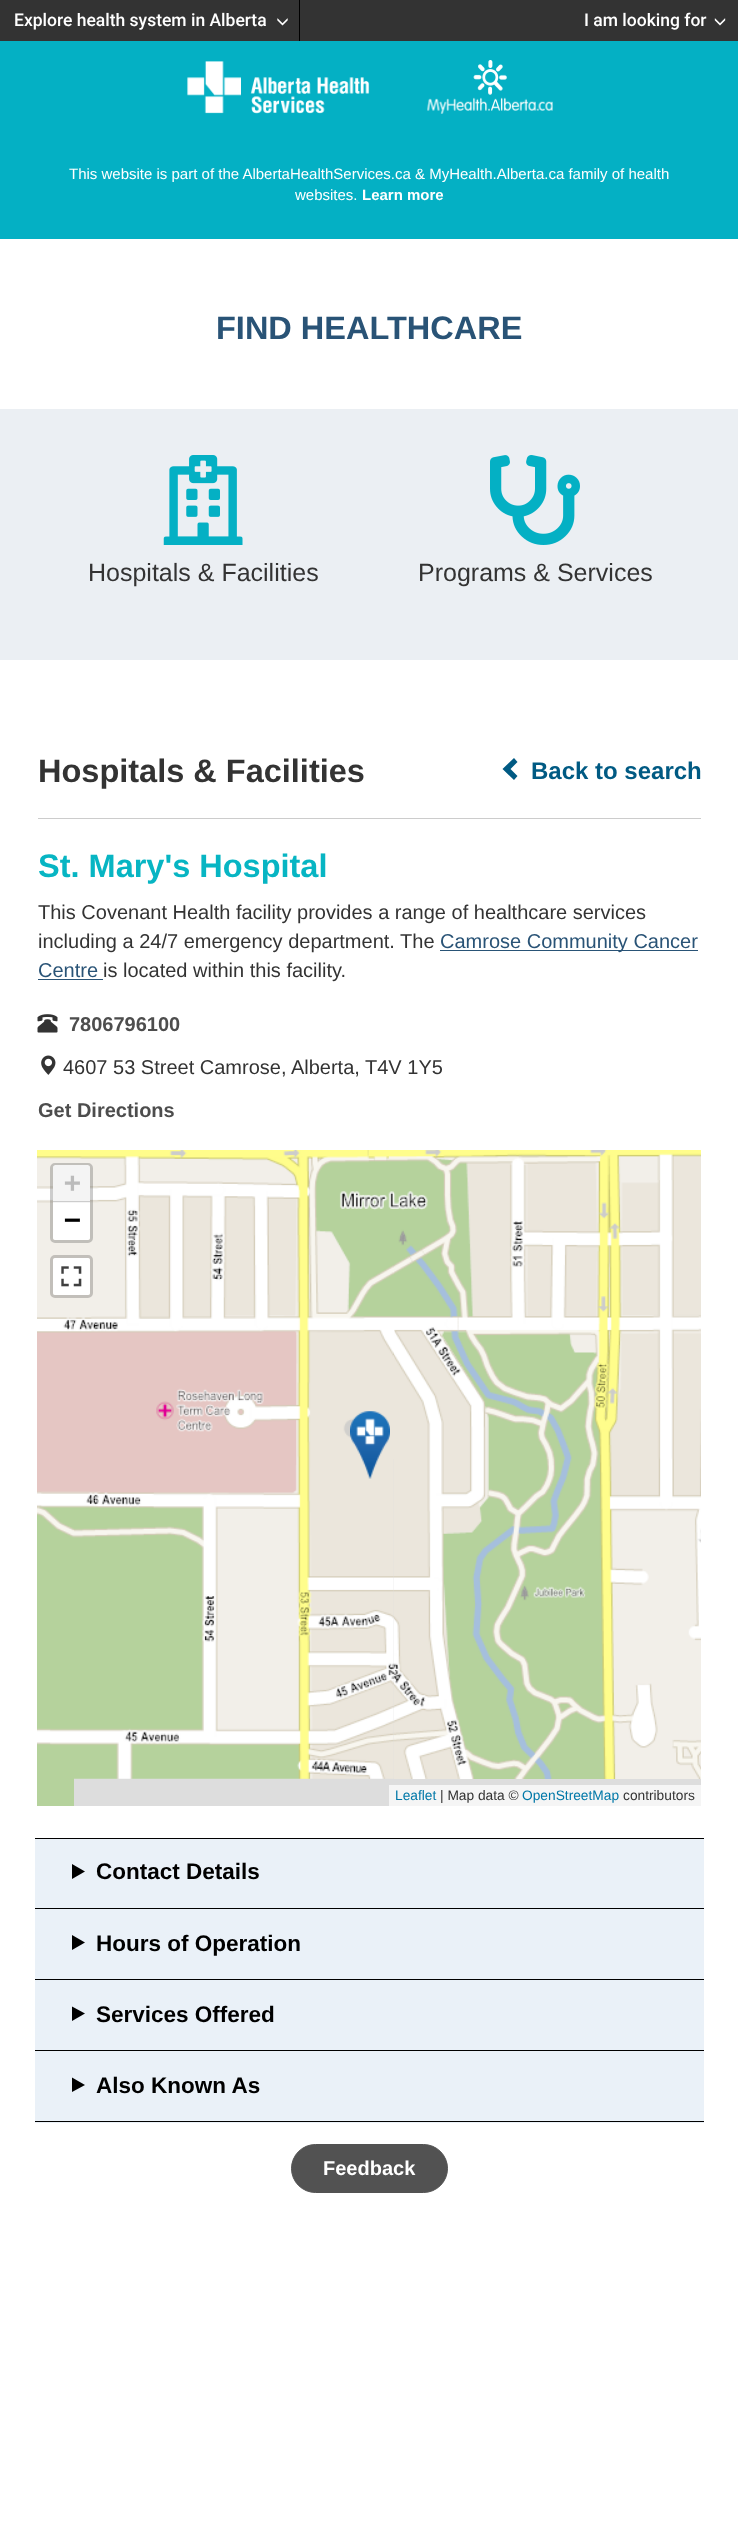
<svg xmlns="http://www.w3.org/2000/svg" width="738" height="2522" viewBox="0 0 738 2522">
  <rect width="100%" height="100%" fill="rgb(255,255,255)"/>
  <rect x="0" y="0" width="738" height="41" fill="rgb(51,51,51)"/>
  <rect x="299" y="0" width="1" height="41" fill="rgb(0,0,0)"/>
  <text x="14" y="26" font-family="Roboto" font-size="17.5" font-weight="500" fill="rgb(255,255,255)">Explore health system in Alberta</text>
  <image x="277" y="18" width="11" height="8" href="pic1.png"/>
  <text x="584" y="26" font-family="Roboto" font-size="17.5" font-weight="500" fill="rgb(255,255,255)">I am looking for</text>
  <image x="714" y="18" width="12" height="8" href="pic2.png"/>
  <rect x="0" y="41" width="738" height="198" fill="rgb(4,176,196)"/>
  <image x="187" y="61" width="183" height="53" href="pic3.png"/>
  <image x="427" y="60" width="126" height="54" href="pic4.png"/>
  <g font-family="Liberation Sans" font-size="15" fill="rgb(255,255,255)">
    <text x="69" y="179">This website is part of the AlbertaHealthServices.ca &amp; MyHealth.Alberta.ca family of health</text>
    <text x="295" y="200">websites.</text>
  </g>
  <text x="362" y="200" font-family="Liberation Sans" font-size="15" font-weight="bold" fill="rgb(255,255,255)">Learn more</text>
  <text x="216" y="339" font-family="Liberation Sans" font-size="32.5" font-weight="bold" fill="rgb(41,83,118)">FIND HEALTHCARE</text>
  <rect x="0" y="409" width="738" height="251" fill="rgb(235,239,243)"/>
  <image x="163" y="455" width="80" height="90" href="pic5.png"/>
  <text x="88" y="581" font-family="Liberation Sans" font-size="25" fill="rgb(51,51,51)">Hospitals &amp; Facilities</text>
  <image x="490" y="455" width="90" height="90" href="pic6.png"/>
  <text x="418" y="581" font-family="Liberation Sans" font-size="25" fill="rgb(51,51,51)">Programs &amp; Services</text>
  <text x="38" y="782" font-family="Liberation Sans" font-size="32.5" font-weight="bold" fill="rgb(51,51,51)">Hospitals &amp; Facilities</text>
  <path d="M517.5 762L510.5 769L517.5 776L514 780L502.5 769L514 758Z" fill="rgb(0,90,131)"/>
  <text x="531" y="779" font-family="Liberation Sans" font-size="24" font-weight="bold" fill="rgb(0,90,131)">Back to search</text>
  <rect x="38" y="818" width="663" height="1" fill="rgb(204,204,204)"/>
  <text x="38" y="877" font-family="Liberation Sans" font-size="32.5" font-weight="bold" fill="rgb(7,181,195)">St. Mary's Hospital</text>
  <g font-family="Liberation Sans" font-size="20" fill="rgb(51,51,51)">
    <text>
      <tspan x="38" y="919">This Covenant Health facility provides a range of healthcare services</tspan>
      <tspan x="38" y="948">including a 24/7 emergency department. The</tspan>
    </text>
  </g>
  <rect x="440" y="950" width="258" height="1" fill="rgb(41,83,118)"/>
  <g font-family="Liberation Sans" font-size="20" fill="rgb(41,83,118)">
    <text x="440" y="948">Camrose Community Cancer</text>
    <text x="38" y="977">Centre</text>
  </g>
  <rect x="38" y="979" width="65" height="1" fill="rgb(41,83,118)"/>
  <text x="103" y="977" font-family="Liberation Sans" font-size="20" fill="rgb(51,51,51)">is located within this facility.</text>
  <image x="37" y="1014" width="21" height="19" href="pic7.png"/>
  <text x="69" y="1031" font-family="Liberation Sans" font-size="20" font-weight="bold" fill="rgb(77,77,77)">7806796100</text>
  <image x="41" y="1055" width="15" height="20" href="pic8.png"/>
  <text x="63" y="1074" font-family="Liberation Sans" font-size="20" fill="rgb(51,51,51)">4607 53 Street Camrose, Alberta, T4V 1Y5</text>
  <text x="38" y="1117" font-family="Liberation Sans" font-size="20" font-weight="bold" fill="rgb(77,77,77)">Get Directions</text>
  <rect x="74" y="1459" width="627" height="347" fill="rgb(221,221,221)"/>
  <image x="37" y="1150" width="37" height="309" href="pic9.png"/>
  <image x="74" y="1150" width="320" height="309" href="pic10.png"/>
  <image x="394" y="1150" width="307" height="309" href="pic11.png"/>
  <image x="37" y="1459" width="37" height="320" href="pic12.png"/>
  <image x="74" y="1459" width="320" height="320" href="pic13.png"/>
  <image x="394" y="1459" width="307" height="320" href="pic14.png"/>
  <rect x="37" y="1779" width="37" height="27" fill="rgb(181,210,156)"/>
  <image x="350" y="1411" width="40" height="68" href="pic15.png"/>
  <rect x="51.5" y="1164.5" width="40" height="77" rx="3.5" fill="none" stroke="rgba(0,0,0,0.2)" stroke-width="3"/>
  <path d="M55.5 1165H87.5C89 1165 90 1166 90 1167.5V1203H53V1167.5C53 1166 54 1165 55.5 1165Z" fill="rgb(244,244,244)"/>
  <rect x="53" y="1201" width="37" height="1" fill="rgb(204,204,204)"/>
  <text x="64" y="1192" font-family="DejaVu Sans Mono" font-size="28" font-weight="bold" fill="rgb(187,187,187)">+</text>
  <path d="M53 1203H90V1237.5C90 1239 89 1240 87.5 1240H55.5C54 1240 53 1239 53 1237.5Z" fill="rgb(255,255,255)"/>
  <text x="64" y="1229" font-family="DejaVu Sans Mono" font-size="28" font-weight="bold" fill="rgb(0,0,0)">−</text>
  <rect x="51.5" y="1256.5" width="40" height="40" rx="3.5" fill="none" stroke="rgb(194,191,186)" stroke-width="3"/>
  <rect x="53" y="1258" width="37" height="37" rx="2.5" fill="rgb(255,255,255)"/>
  <image x="61" y="1266" width="21" height="21" href="pic16.png"/>
  <rect x="389" y="1785" width="312" height="21" fill="rgb(245,245,245)"/>
  <text x="395" y="1800" font-family="Liberation Sans" font-size="13.75" fill="rgb(0,120,168)">Leaflet</text>
  <text x="440" y="1800" font-family="Liberation Sans" font-size="13.75" fill="rgb(51,51,51)">| Map data ©</text>
  <text x="522" y="1800" font-family="Liberation Sans" font-size="13.75" fill="rgb(0,120,168)">OpenStreetMap</text>
  <text x="623" y="1800" font-family="Liberation Sans" font-size="13.75" fill="rgb(51,51,51)">contributors</text>
  <rect x="35" y="1839" width="669" height="69" fill="rgb(234,241,248)"/>
  <rect x="35" y="1838" width="669" height="1" fill="rgb(0,0,0)"/>
  <rect x="35" y="1908" width="669" height="1" fill="rgb(0,0,0)"/>
  <path d="M72 1864L85 1871.5L72 1879Z" fill="rgb(0,0,0)"/>
  <text x="96" y="1879" font-family="Liberation Sans" font-size="22.5" font-weight="bold" fill="rgb(0,0,0)">Contact Details</text>
  <rect x="35" y="1909" width="669" height="70" fill="rgb(234,241,248)"/>
  <rect x="35" y="1979" width="669" height="1" fill="rgb(0,0,0)"/>
  <path d="M72 1935L85 1942.5L72 1950Z" fill="rgb(0,0,0)"/>
  <text x="96" y="1951" font-family="Liberation Sans" font-size="22.5" font-weight="bold" fill="rgb(0,0,0)">Hours of Operation</text>
  <rect x="35" y="1980" width="669" height="70" fill="rgb(234,241,248)"/>
  <rect x="35" y="2050" width="669" height="1" fill="rgb(0,0,0)"/>
  <path d="M72 2006.5L85 2013.5L72 2021Z" fill="rgb(0,0,0)"/>
  <text x="96" y="2022" font-family="Liberation Sans" font-size="22.5" font-weight="bold" fill="rgb(0,0,0)">Services Offered</text>
  <rect x="35" y="2051" width="669" height="72" fill="rgb(234,241,248)"/>
  <rect x="35" y="2121" width="669" height="1" fill="rgb(0,0,0)"/>
  <path d="M72 2077.5L85 2085L72 2092Z" fill="rgb(0,0,0)"/>
  <text x="96" y="2093" font-family="Liberation Sans" font-size="22.5" font-weight="bold" fill="rgb(0,0,0)">Also Known As</text>
  <rect x="291.5" y="2144.5" width="156" height="48" rx="24" fill="rgb(82,82,82)" stroke="rgb(82,82,82)"/>
  <text x="323" y="2175" font-family="Liberation Sans" font-size="20" font-weight="bold" fill="rgb(255,255,255)">Feedback</text>
</svg>
